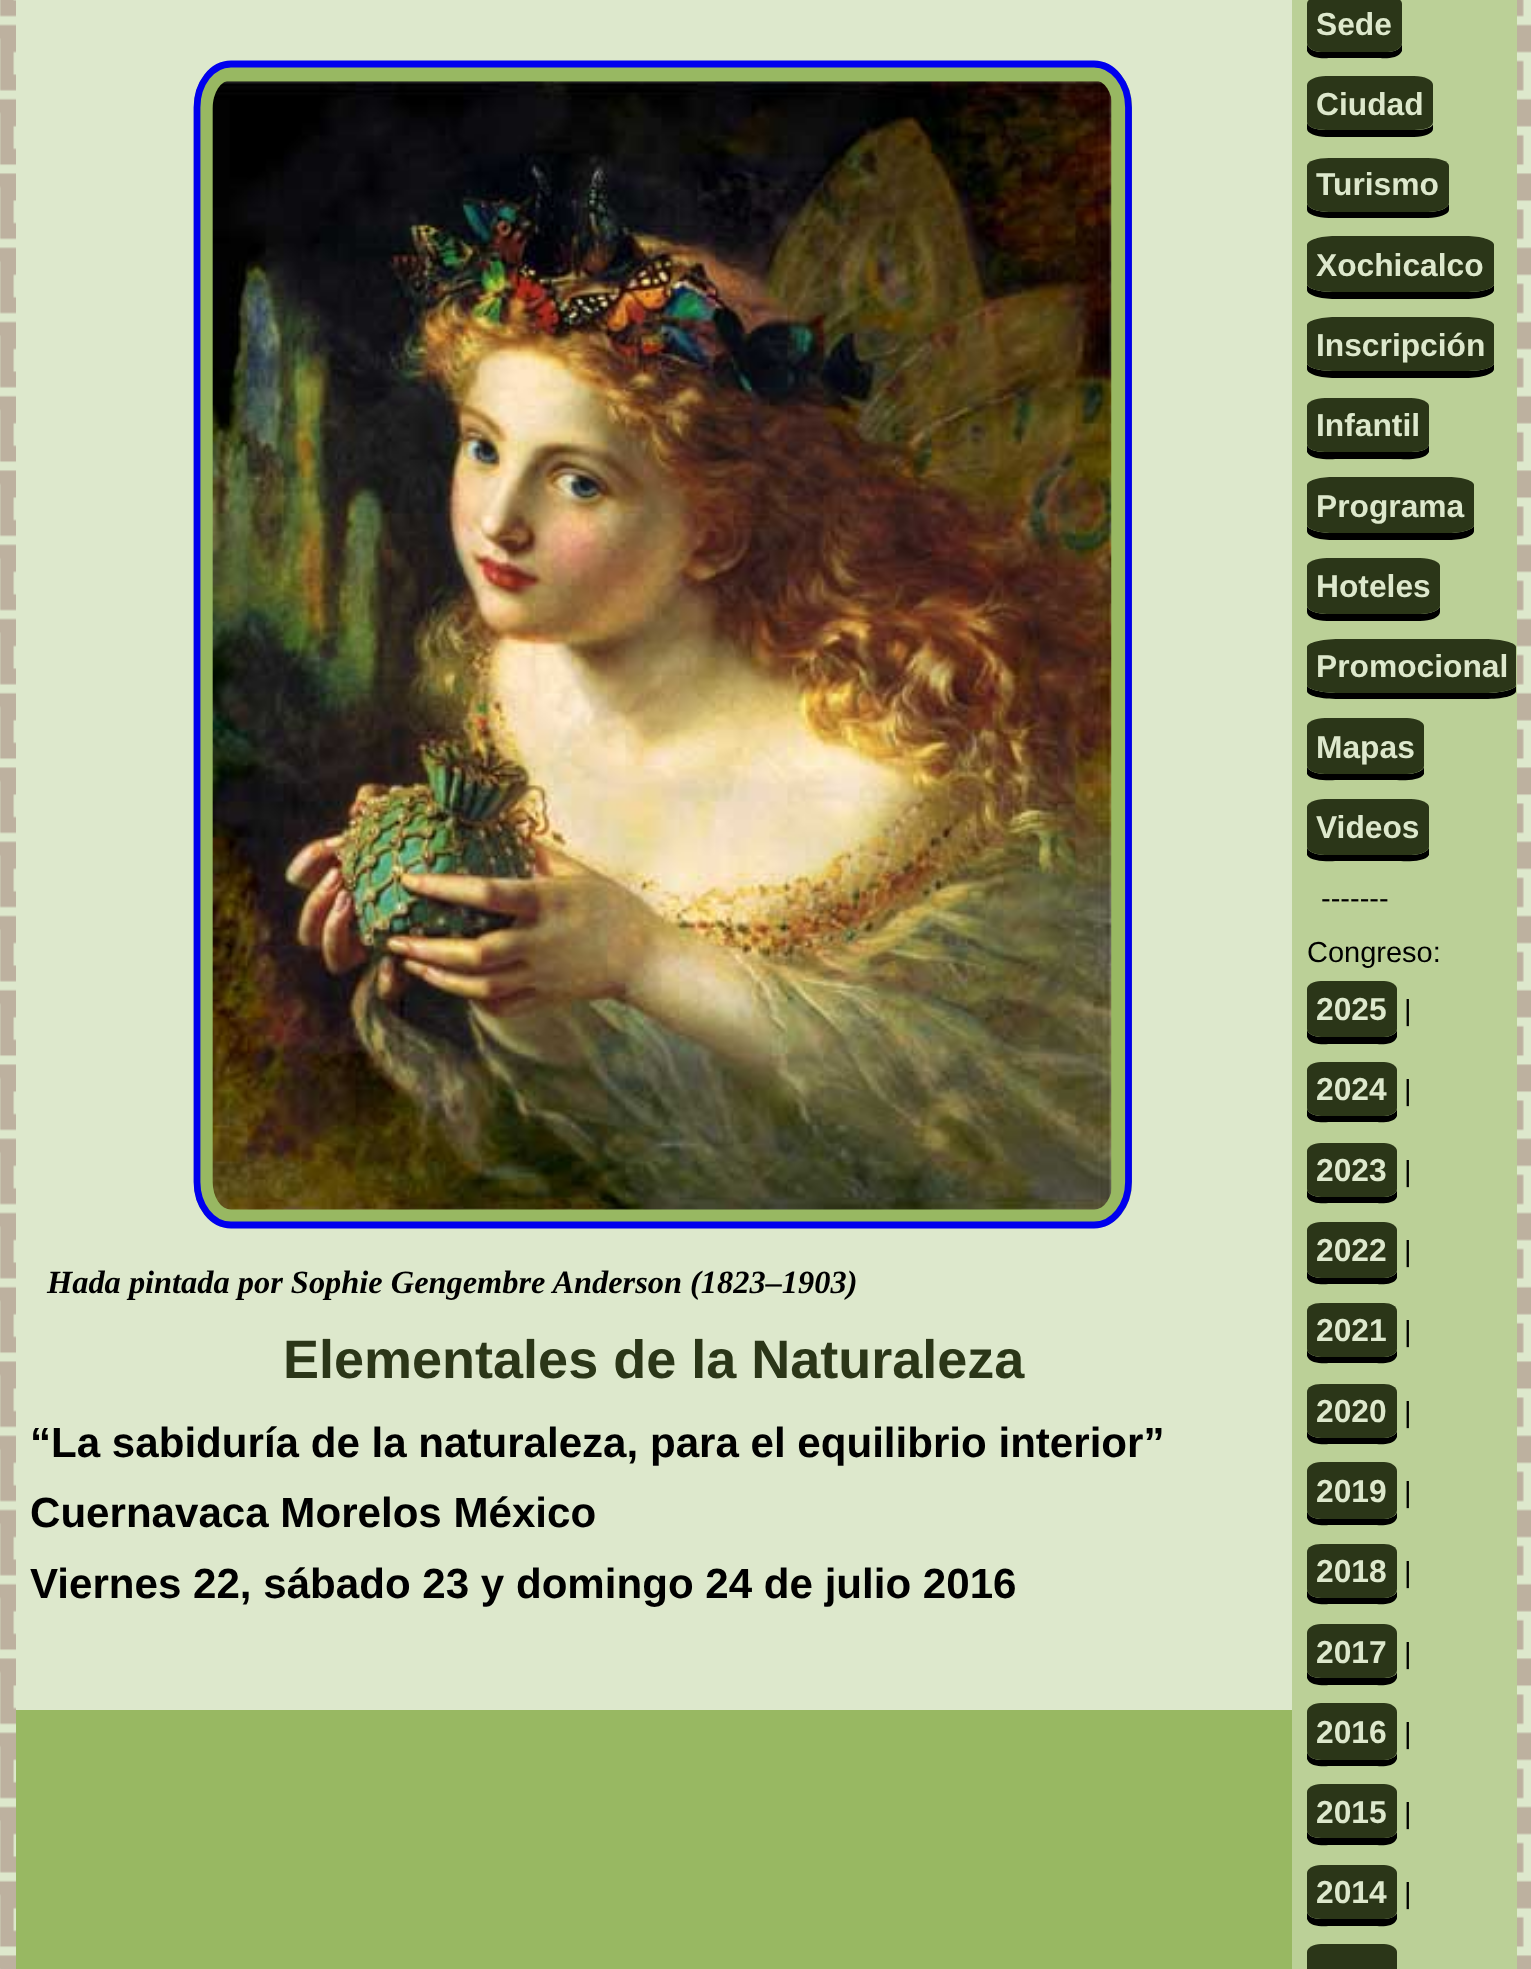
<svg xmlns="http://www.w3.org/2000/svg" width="1531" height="1969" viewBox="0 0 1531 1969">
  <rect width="100%" height="100%" fill="rgb(221,232,204)"/>
  <image x="0" y="0" width="1531" height="1969" href="pic1.png"/>
  <rect x="16" y="1710" width="1276" height="259" fill="rgb(152,184,98)"/>
  <rect x="16" y="0" width="1276" height="1710" fill="rgb(221,232,204)"/>
  <path d="M231 61H1094C1115 61 1132 82 1132 107V1182C1132 1208 1115 1228 1094 1228H231C210 1228 194 1208 194 1182V107C194 82 210 61 231 61Z" fill="rgb(152,184,98)"/>
  <path d="M231 64H1094C1113 64 1128.5 83.5 1128.5 107.5V1182C1128.5 1205.5 1113 1225 1094 1225H231C212 1225 197 1205.5 197 1182V107.5C197 83.5 212 64 231 64Z" fill="none" stroke="rgb(0,0,238)" stroke-width="6.8"/>
  <image x="212" y="81" width="900" height="1129" href="pic2.png"/>
  <text x="47" y="1293" font-family="Liberation Serif" font-size="32.4" font-weight="bold" font-style="italic" fill="rgb(0,0,0)">Hada pintada por Sophie Gengembre Anderson (1823–1903)</text>
  <text x="283" y="1378" font-family="Liberation Sans" font-size="54" font-weight="bold" fill="rgb(43,54,24)">Elementales de la Naturaleza</text>
  <g font-family="Liberation Sans" font-size="42.1" font-weight="bold" fill="rgb(0,0,0)">
    <text>
      <tspan x="30" y="1457">“La sabiduría de la naturaleza, para el equilibrio interior”</tspan>
      <tspan x="30" y="1527">Cuernavaca Morelos México</tspan>
      <tspan x="30" y="1598">Viernes 22, sábado 23 y domingo 24 de julio 2016</tspan>
    </text>
  </g>
  <rect x="1292" y="0" width="225" height="1969" fill="rgb(187,208,151)"/>
  <path d="M1307 9V51C1311 60 1326 58 1332 58H1377C1383 58 1398 60 1402 51V9V43C1402 48 1395 52 1388 52H1321C1314 52 1307 48 1307 43Z" fill="rgb(0,0,0)"/>
  <path d="M1321-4H1388C1395-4 1402-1 1402 4V43C1402 48 1395 52 1388 52H1321C1314 52 1307 48 1307 43V4C1307-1 1314-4 1321-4Z" fill="rgb(43,54,24)"/>
  <text x="1316" y="35" font-family="Liberation Sans" font-size="31.75" font-weight="bold" fill="rgb(221,232,204)">Sede</text>
  <path d="M1307 90V129C1307 133 1316 137 1326 137H1414C1425 137 1433 133 1433 129V124C1432 128 1424 130 1414 130H1326C1316 130 1307 127 1307 122Z" fill="rgb(0,0,0)"/>
  <path d="M1326 76H1414C1425 76 1433 80 1433 85V122C1433 127 1425 130 1414 130H1326C1316 130 1307 127 1307 122V85C1307 80 1316 76 1326 76Z" fill="rgb(43,54,24)"/>
  <text x="1316" y="115" font-family="Liberation Sans" font-size="31.75" font-weight="bold" fill="rgb(221,232,204)">Ciudad</text>
  <path d="M1307 171V210C1307 214 1317 218 1329 218H1428C1439 218 1449 214 1449 210V203C1449 208 1439 212 1428 212H1329C1317 212 1307 208 1307 203Z" fill="rgb(0,0,0)"/>
  <path d="M1329 158H1428C1439 158 1449 161 1449 166V203C1449 208 1439 212 1428 212H1329C1317 212 1307 208 1307 203V166C1307 161 1317 158 1329 158Z" fill="rgb(43,54,24)"/>
  <text x="1316" y="195" font-family="Liberation Sans" font-size="31.75" font-weight="bold" fill="rgb(221,232,204)">Turismo</text>
  <path d="M1307 250V290C1307 295 1320 299 1335 299H1466C1481 299 1494 295 1494 290V284C1494 289 1481 292 1466 292H1335C1320 292 1307 289 1307 284Z" fill="rgb(0,0,0)"/>
  <path d="M1335 236H1466C1481 236 1494 240 1494 245V284C1494 289 1481 292 1466 292H1335C1320 292 1307 289 1307 284V245C1307 240 1320 236 1335 236Z" fill="rgb(43,54,24)"/>
  <text x="1316" y="276" font-family="Liberation Sans" font-size="31.75" font-weight="bold" fill="rgb(221,232,204)">Xochicalco</text>
  <path d="M1307 331V369C1307 374 1320 378 1335 378H1466C1481 378 1494 374 1494 369V363C1494 368 1481 371 1466 371H1335C1320 371 1307 368 1307 363Z" fill="rgb(0,0,0)"/>
  <path d="M1335 317H1466C1481 317 1494 321 1494 325V363C1494 368 1481 371 1466 371H1335C1320 371 1307 368 1307 363V325C1307 321 1320 317 1335 317Z" fill="rgb(43,54,24)"/>
  <text x="1316" y="356" font-family="Liberation Sans" font-size="31.75" font-weight="bold" fill="rgb(221,232,204)">Inscripción</text>
  <path d="M1307 412V452C1311 461 1333 459 1339 459H1397C1403 459 1425 461 1429 452V412V444C1429 449 1421 452 1411 452H1325C1315 452 1307 449 1307 444Z" fill="rgb(0,0,0)"/>
  <path d="M1325 398H1411C1421 398 1429 402 1429 406V444C1429 449 1421 452 1411 452H1325C1315 452 1307 449 1307 444V406C1307 402 1315 398 1325 398Z" fill="rgb(43,54,24)"/>
  <text x="1316" y="436" font-family="Liberation Sans" font-size="31.75" font-weight="bold" fill="rgb(221,232,204)">Infantil</text>
  <path d="M1307 491V531C1307 536 1318 540 1332 540H1449C1463 540 1474 536 1474 531V491V525C1474 529 1463 533 1449 533H1332C1318 533 1307 529 1307 525Z" fill="rgb(0,0,0)"/>
  <path d="M1332 477H1449C1463 477 1474 481 1474 485V525C1474 529 1463 533 1449 533H1332C1318 533 1307 529 1307 525V485C1307 481 1318 477 1332 477Z" fill="rgb(43,54,24)"/>
  <text x="1316" y="517" font-family="Liberation Sans" font-size="31.75" font-weight="bold" fill="rgb(221,232,204)">Programa</text>
  <path d="M1307 572V612C1307 617 1316 621 1327 621H1420C1431 621 1440 617 1440 612V606C1440 610 1431 614 1420 614H1327C1316 614 1307 610 1307 606Z" fill="rgb(0,0,0)"/>
  <path d="M1327 558H1420C1431 558 1440 562 1440 566V606C1440 610 1431 614 1420 614H1327C1316 614 1307 610 1307 606V566C1307 562 1316 558 1327 558Z" fill="rgb(43,54,24)"/>
  <text x="1316" y="597" font-family="Liberation Sans" font-size="31.75" font-weight="bold" fill="rgb(221,232,204)">Hoteles</text>
  <path d="M1307 652V691C1307 696 1321 699 1339 699H1485C1502 699 1516 696 1516 691V686C1513 690 1501 693 1485 693H1339C1321 693 1307 689 1307 685Z" fill="rgb(0,0,0)"/>
  <path d="M1339 639H1485C1502 639 1516 643 1516 647V685C1516 689 1502 693 1485 693H1339C1321 693 1307 689 1307 685V647C1307 643 1321 639 1339 639Z" fill="rgb(43,54,24)"/>
  <text x="1316" y="677" font-family="Liberation Sans" font-size="31.75" font-weight="bold" fill="rgb(221,232,204)">Promocional</text>
  <path d="M1307 731V774C1311 782 1334 780 1339 780H1393C1398 780 1420 782 1424 774V767C1423 771 1415 774 1407 774H1325C1315 774 1307 770 1307 766Z" fill="rgb(0,0,0)"/>
  <path d="M1325 718H1407C1416 718 1424 722 1424 726V766C1424 770 1416 774 1407 774H1325C1315 774 1307 770 1307 766V726C1307 722 1315 718 1325 718Z" fill="rgb(43,54,24)"/>
  <text x="1316" y="758" font-family="Liberation Sans" font-size="31.75" font-weight="bold" fill="rgb(221,232,204)">Mapas</text>
  <path d="M1307 812V855C1311 863 1334 861 1339 861H1397C1402 861 1425 863 1429 855V812V847C1429 851 1421 855 1411 855H1325C1315 855 1307 851 1307 847Z" fill="rgb(0,0,0)"/>
  <path d="M1325 799H1411C1421 799 1429 803 1429 807V847C1429 851 1421 855 1411 855H1325C1315 855 1307 851 1307 847V807C1307 803 1315 799 1325 799Z" fill="rgb(43,54,24)"/>
  <text x="1316" y="838" font-family="Liberation Sans" font-size="31.75" font-weight="bold" fill="rgb(221,232,204)">Videos</text>
  <g font-family="Liberation Sans" font-size="29" fill="rgb(0,0,0)">
    <text x="1321" y="908">-------</text>
    <text x="1307" y="962">Congreso:</text>
  </g>
  <path d="M1307 994V1037C1310 1046 1325 1044 1332 1044H1374C1380 1044 1394 1046 1397 1037V1030C1396 1034 1390 1037 1384 1037H1321C1313 1037 1307 1033 1307 1029Z" fill="rgb(0,0,0)"/>
  <path d="M1321 981H1384C1391 981 1397 985 1397 989V1029C1397 1033 1391 1037 1384 1037H1321C1313 1037 1307 1033 1307 1029V989C1307 985 1313 981 1321 981Z" fill="rgb(43,54,24)"/>
  <text x="1316" y="1020" font-family="Liberation Sans" font-size="31.75" font-weight="bold" fill="rgb(221,232,204)">2025</text>
  <text x="1404" y="1020" font-family="Liberation Sans" font-size="29" fill="rgb(0,0,0)">|</text>
  <path d="M1307 1075V1116C1310 1124 1326 1122 1332 1122H1374C1379 1122 1394 1124 1397 1116V1109C1396 1113 1390 1116 1384 1116H1321C1313 1116 1307 1112 1307 1108Z" fill="rgb(0,0,0)"/>
  <path d="M1321 1062H1384C1391 1062 1397 1066 1397 1070V1108C1397 1112 1391 1116 1384 1116H1321C1313 1116 1307 1112 1307 1108V1070C1307 1066 1313 1062 1321 1062Z" fill="rgb(43,54,24)"/>
  <text x="1316" y="1100" font-family="Liberation Sans" font-size="31.75" font-weight="bold" fill="rgb(221,232,204)">2024</text>
  <text x="1404" y="1100" font-family="Liberation Sans" font-size="29" fill="rgb(0,0,0)">|</text>
  <path d="M1307 1156V1197C1310 1205 1326 1203 1332 1203H1374C1379 1203 1394 1205 1397 1197V1190C1396 1194 1390 1197 1384 1197H1321C1313 1197 1307 1193 1307 1189Z" fill="rgb(0,0,0)"/>
  <path d="M1321 1143H1384C1391 1143 1397 1147 1397 1151V1189C1397 1193 1391 1197 1384 1197H1321C1313 1197 1307 1193 1307 1189V1151C1307 1147 1313 1143 1321 1143Z" fill="rgb(43,54,24)"/>
  <text x="1316" y="1181" font-family="Liberation Sans" font-size="31.75" font-weight="bold" fill="rgb(221,232,204)">2023</text>
  <text x="1404" y="1181" font-family="Liberation Sans" font-size="29" fill="rgb(0,0,0)">|</text>
  <path d="M1307 1235V1278C1310 1286 1326 1284 1332 1284H1374C1379 1284 1394 1286 1397 1278V1271C1396 1275 1390 1278 1384 1278H1321C1313 1278 1307 1274 1307 1270Z" fill="rgb(0,0,0)"/>
  <path d="M1321 1222H1384C1391 1222 1397 1226 1397 1230V1270C1397 1274 1391 1278 1384 1278H1321C1313 1278 1307 1274 1307 1270V1230C1307 1226 1313 1222 1321 1222Z" fill="rgb(43,54,24)"/>
  <text x="1316" y="1261" font-family="Liberation Sans" font-size="31.75" font-weight="bold" fill="rgb(221,232,204)">2022</text>
  <text x="1404" y="1261" font-family="Liberation Sans" font-size="29" fill="rgb(0,0,0)">|</text>
  <path d="M1307 1316V1356C1310 1365 1326 1363 1332 1363H1374C1379 1363 1394 1365 1397 1356V1350C1396 1354 1390 1357 1384 1357H1321C1313 1357 1307 1353 1307 1349Z" fill="rgb(0,0,0)"/>
  <path d="M1321 1303H1384C1391 1303 1397 1306 1397 1311V1349C1397 1353 1391 1357 1384 1357H1321C1313 1357 1307 1353 1307 1349V1311C1307 1306 1313 1303 1321 1303Z" fill="rgb(43,54,24)"/>
  <text x="1316" y="1341" font-family="Liberation Sans" font-size="31.75" font-weight="bold" fill="rgb(221,232,204)">2021</text>
  <text x="1404" y="1341" font-family="Liberation Sans" font-size="29" fill="rgb(0,0,0)">|</text>
  <path d="M1307 1397V1437C1310 1446 1326 1444 1332 1444H1374C1379 1444 1394 1446 1397 1437V1431C1396 1435 1390 1438 1384 1438H1321C1313 1438 1307 1434 1307 1430Z" fill="rgb(0,0,0)"/>
  <path d="M1321 1384H1384C1391 1384 1397 1387 1397 1392V1430C1397 1434 1391 1438 1384 1438H1321C1313 1438 1307 1434 1307 1430V1392C1307 1387 1313 1384 1321 1384Z" fill="rgb(43,54,24)"/>
  <text x="1316" y="1422" font-family="Liberation Sans" font-size="31.75" font-weight="bold" fill="rgb(221,232,204)">2020</text>
  <text x="1404" y="1422" font-family="Liberation Sans" font-size="29" fill="rgb(0,0,0)">|</text>
  <path d="M1307 1476V1518C1310 1527 1326 1525 1332 1525H1374C1379 1525 1394 1527 1397 1518V1512C1396 1516 1390 1519 1384 1519H1321C1313 1519 1307 1515 1307 1510Z" fill="rgb(0,0,0)"/>
  <path d="M1321 1462H1384C1391 1462 1397 1466 1397 1471V1510C1397 1515 1391 1519 1384 1519H1321C1313 1519 1307 1515 1307 1510V1471C1307 1466 1313 1462 1321 1462Z" fill="rgb(43,54,24)"/>
  <text x="1316" y="1502" font-family="Liberation Sans" font-size="31.75" font-weight="bold" fill="rgb(221,232,204)">2019</text>
  <text x="1404" y="1502" font-family="Liberation Sans" font-size="29" fill="rgb(0,0,0)">|</text>
  <path d="M1307 1556V1597C1310 1606 1326 1604 1332 1604H1374C1379 1604 1394 1606 1397 1597V1591C1396 1595 1390 1598 1384 1598H1321C1313 1598 1307 1594 1307 1589Z" fill="rgb(0,0,0)"/>
  <path d="M1321 1544H1384C1391 1544 1397 1547 1397 1552V1589C1397 1594 1391 1598 1384 1598H1321C1313 1598 1307 1594 1307 1589V1552C1307 1547 1313 1544 1321 1544Z" fill="rgb(43,54,24)"/>
  <text x="1316" y="1582" font-family="Liberation Sans" font-size="31.75" font-weight="bold" fill="rgb(221,232,204)">2018</text>
  <text x="1404" y="1582" font-family="Liberation Sans" font-size="29" fill="rgb(0,0,0)">|</text>
  <path d="M1307 1637V1678C1310 1687 1326 1685 1332 1685H1374C1379 1685 1394 1687 1397 1678V1672C1396 1676 1390 1678 1384 1678H1321C1313 1678 1307 1675 1307 1670Z" fill="rgb(0,0,0)"/>
  <path d="M1321 1624H1384C1391 1624 1397 1628 1397 1633V1670C1397 1675 1391 1678 1384 1678H1321C1313 1678 1307 1675 1307 1670V1633C1307 1628 1313 1624 1321 1624Z" fill="rgb(43,54,24)"/>
  <text x="1316" y="1663" font-family="Liberation Sans" font-size="31.75" font-weight="bold" fill="rgb(221,232,204)">2017</text>
  <text x="1404" y="1663" font-family="Liberation Sans" font-size="29" fill="rgb(0,0,0)">|</text>
  <path d="M1307 1716V1759C1310 1768 1325 1766 1332 1766H1374C1380 1766 1394 1768 1397 1759V1753C1396 1757 1390 1760 1384 1760H1321C1313 1760 1307 1756 1307 1751Z" fill="rgb(0,0,0)"/>
  <path d="M1321 1703H1384C1391 1703 1397 1707 1397 1712V1751C1397 1756 1391 1760 1384 1760H1321C1313 1760 1307 1756 1307 1751V1712C1307 1707 1313 1703 1321 1703Z" fill="rgb(43,54,24)"/>
  <text x="1316" y="1743" font-family="Liberation Sans" font-size="31.75" font-weight="bold" fill="rgb(221,232,204)">2016</text>
  <text x="1404" y="1743" font-family="Liberation Sans" font-size="29" fill="rgb(0,0,0)">|</text>
  <path d="M1307 1797V1838C1310 1847 1325 1845 1332 1845H1374C1380 1845 1394 1847 1397 1838V1832C1396 1835 1390 1838 1384 1838H1321C1313 1838 1307 1835 1307 1830Z" fill="rgb(0,0,0)"/>
  <path d="M1321 1784H1384C1391 1784 1397 1788 1397 1792V1830C1397 1835 1391 1838 1384 1838H1321C1313 1838 1307 1835 1307 1830V1792C1307 1788 1313 1784 1321 1784Z" fill="rgb(43,54,24)"/>
  <text x="1316" y="1823" font-family="Liberation Sans" font-size="31.75" font-weight="bold" fill="rgb(221,232,204)">2015</text>
  <text x="1404" y="1823" font-family="Liberation Sans" font-size="29" fill="rgb(0,0,0)">|</text>
  <path d="M1307 1878V1919C1310 1928 1325 1926 1332 1926H1374C1380 1926 1394 1928 1397 1919V1913C1396 1916 1390 1919 1384 1919H1321C1313 1919 1307 1916 1307 1911Z" fill="rgb(0,0,0)"/>
  <path d="M1321 1865H1384C1391 1865 1397 1869 1397 1873V1911C1397 1916 1391 1919 1384 1919H1321C1313 1919 1307 1916 1307 1911V1873C1307 1869 1313 1865 1321 1865Z" fill="rgb(43,54,24)"/>
  <text x="1316" y="1903" font-family="Liberation Sans" font-size="31.75" font-weight="bold" fill="rgb(221,232,204)">2014</text>
  <text x="1404" y="1903" font-family="Liberation Sans" font-size="29" fill="rgb(0,0,0)">|</text>
  <path d="M1321 1944H1384C1391 1944 1397 1948 1397 1952V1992C1397 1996 1391 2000 1384 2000H1321C1313 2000 1307 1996 1307 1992V1952C1307 1948 1313 1944 1321 1944Z" fill="rgb(43,54,24)"/>
</svg>
